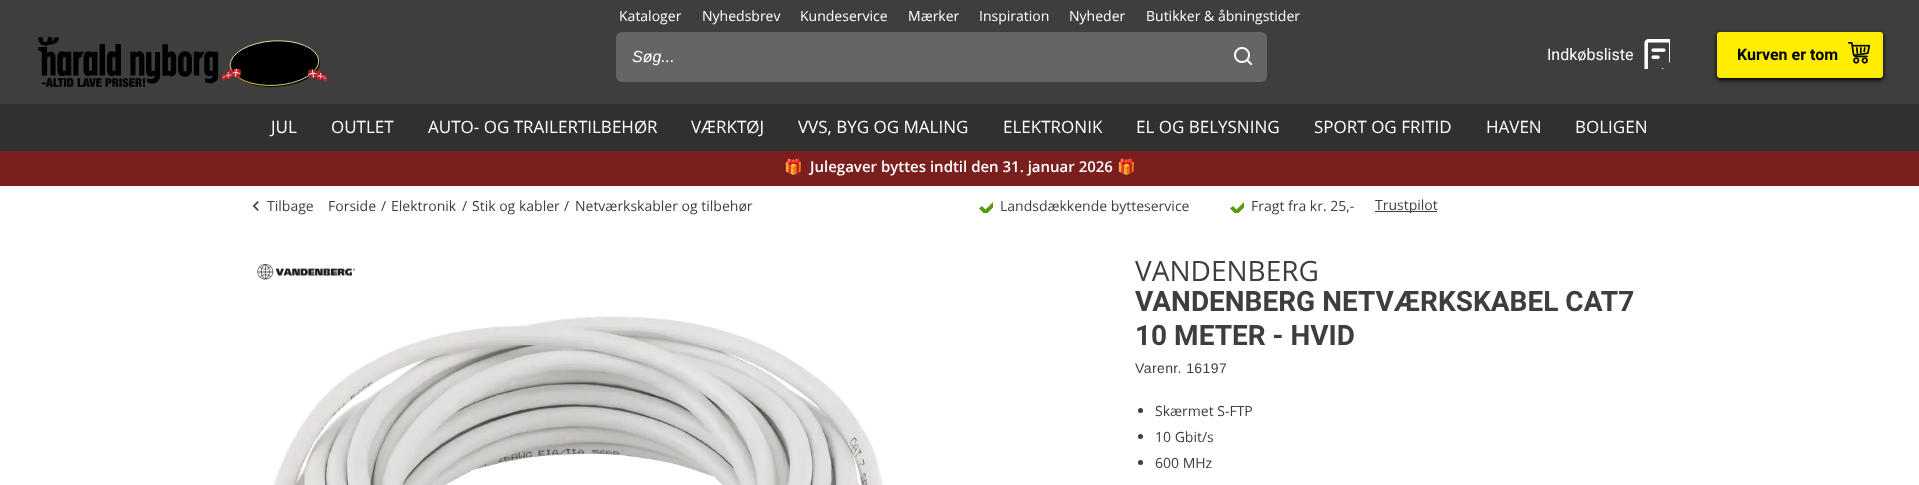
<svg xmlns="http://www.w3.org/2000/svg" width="1919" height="485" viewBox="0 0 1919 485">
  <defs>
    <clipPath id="clip1"><rect x="979" y="199" width="14" height="14"/></clipPath>
    <clipPath id="clip2"><rect x="1230" y="199" width="14" height="14"/></clipPath>
  </defs>
  <rect width="100%" height="100%" fill="rgb(255,255,255)"/>
  <rect x="0" y="0" width="1919" height="104" fill="rgb(62,62,62)"/>
  <rect x="0" y="104" width="1919" height="47" fill="rgb(48,48,48)"/>
  <g font-family="Open Sans" font-size="14" fill="rgb(255,255,255)">
    <text x="619" y="21">Kataloger</text>
    <text x="702" y="21">Nyhedsbrev</text>
    <text x="800" y="21">Kundeservice</text>
    <text x="908" y="21">Mærker</text>
    <text x="979" y="21">Inspiration</text>
    <text x="1069" y="21">Nyheder</text>
    <text x="1146" y="21">Butikker &amp; åbningstider</text>
  </g>
  <image x="38" y="37" width="290" height="50" href="pic1.png"/>
  <rect x="616" y="32" width="651" height="50" rx="6" fill="rgb(101,101,101)"/>
  <text x="632" y="62" font-family="Liberation Sans" font-size="16" font-style="italic" fill="rgb(255,255,255)">Søg...</text>
  <image x="1234" y="47" width="19" height="19" href="pic2.png"/>
  <text x="1547" y="60" font-family="Roboto" font-size="16" fill="rgb(255,255,255)">Indkøbsliste</text>
  <image x="1644" y="39" width="26" height="30" href="pic3.png"/>
  <rect x="1717" y="34" width="166" height="46" rx="3" fill="rgb(0,0,0)" filter="blur(2px)"/>
  <rect x="1717" y="32" width="166" height="46" rx="3" fill="rgb(255,237,0)"/>
  <text x="1737" y="60" font-family="Roboto" font-size="16" font-weight="bold" fill="rgb(0,0,0)">Kurven er tom</text>
  <image x="1848" y="42" width="23" height="22" href="pic4.png"/>
  <g font-family="Open Sans" font-size="17" fill="rgb(255,255,255)">
    <text x="271" y="133">JUL</text>
    <text x="331" y="133">OUTLET</text>
    <text x="428" y="133">AUTO- OG TRAILERTILBEHØR</text>
    <text x="691" y="133">VÆRKTØJ</text>
    <text x="798" y="133">VVS, BYG OG MALING</text>
    <text x="1003" y="133">ELEKTRONIK</text>
    <text x="1136" y="133">EL OG BELYSNING</text>
    <text x="1314" y="133">SPORT OG FRITID</text>
    <text x="1486" y="133">HAVEN</text>
    <text x="1575" y="133">BOLIGEN</text>
  </g>
  <rect x="0" y="151" width="1919" height="35" fill="rgb(121,32,30)"/>
  <text x="784" y="172" font-family="Noto Color Emoji" font-size="15" font-weight="bold" fill="rgb(255,255,255)">🎁</text>
  <text x="810" y="172" font-family="Open Sans" font-size="15" font-weight="600" fill="rgb(255,255,255)">Julegaver byttes indtil den 31. januar 2026</text>
  <text x="1117" y="172" font-family="Noto Color Emoji" font-size="15" font-weight="bold" fill="rgb(255,255,255)">🎁</text>
  <image x="252" y="201" width="7" height="10" href="pic5.png"/>
  <g font-family="Open Sans" font-size="14" fill="rgb(62,62,62)">
    <text x="267" y="211">Tilbage</text>
    <text x="328" y="211">Forside</text>
    <text x="381" y="211">/</text>
    <text x="391" y="211">Elektronik</text>
    <text x="462" y="211">/</text>
    <text x="472" y="211">Stik og kabler</text>
    <text x="564" y="211">/</text>
    <text x="575" y="211">Netværkskabler og tilbehør</text>
  </g>
  <g clip-path="url(#clip1)">
    <path d="M985.5 215L979 208.5L982 206L985.5 209.5L994.5 200.5L997 203.5Z" fill="rgb(91,153,15)"/>
  </g>
  <text x="1000" y="211" font-family="Open Sans" font-size="14" fill="rgb(62,62,62)">Landsdækkende bytteservice</text>
  <g clip-path="url(#clip2)">
    <path d="M1236.5 215L1230 208.5L1233 206L1236.5 209.5L1245.5 200.5L1248 203.5Z" fill="rgb(91,153,15)"/>
  </g>
  <text x="1251" y="211" font-family="Open Sans" font-size="14" fill="rgb(62,62,62)">Fragt fra kr. 25,-</text>
  <rect x="1375" y="211" width="62" height="1" fill="rgb(62,62,62)"/>
  <text x="1375" y="210" font-family="Open Sans" font-size="14" fill="rgb(62,62,62)">Trustpilot</text>
  <image x="257" y="264" width="98" height="16" href="pic6.png"/>
  <image x="274" y="316" width="609" height="169" href="pic7.png"/>
  <text x="1135" y="281" font-family="Open Sans" font-size="28" fill="rgb(62,62,62)">VANDENBERG</text>
  <g font-family="Roboto" font-size="28" font-weight="bold" fill="rgb(62,62,62)">
    <text>
      <tspan x="1135" y="311">VANDENBERG NETVÆRKSKABEL CAT7</tspan>
      <tspan x="1135" y="345">10 METER - HVID</tspan>
    </text>
  </g>
  <text x="1135" y="373" font-family="Liberation Sans" font-size="14" letter-spacing="0.4" fill="rgb(62,62,62)">Varenr. 16197</text>
  <circle cx="1140.5" cy="410.5" r="2.5" fill="rgb(62,62,62)"/>
  <text x="1155" y="416" font-family="Open Sans" font-size="14" fill="rgb(62,62,62)">Skærmet S-FTP</text>
  <circle cx="1140.5" cy="436.5" r="2.5" fill="rgb(62,62,62)"/>
  <text x="1155" y="442" font-family="Open Sans" font-size="14" fill="rgb(62,62,62)">10 Gbit/s</text>
  <circle cx="1140.5" cy="462.5" r="2.5" fill="rgb(62,62,62)"/>
  <text x="1155" y="468" font-family="Open Sans" font-size="14" fill="rgb(62,62,62)">600 MHz</text>
</svg>
